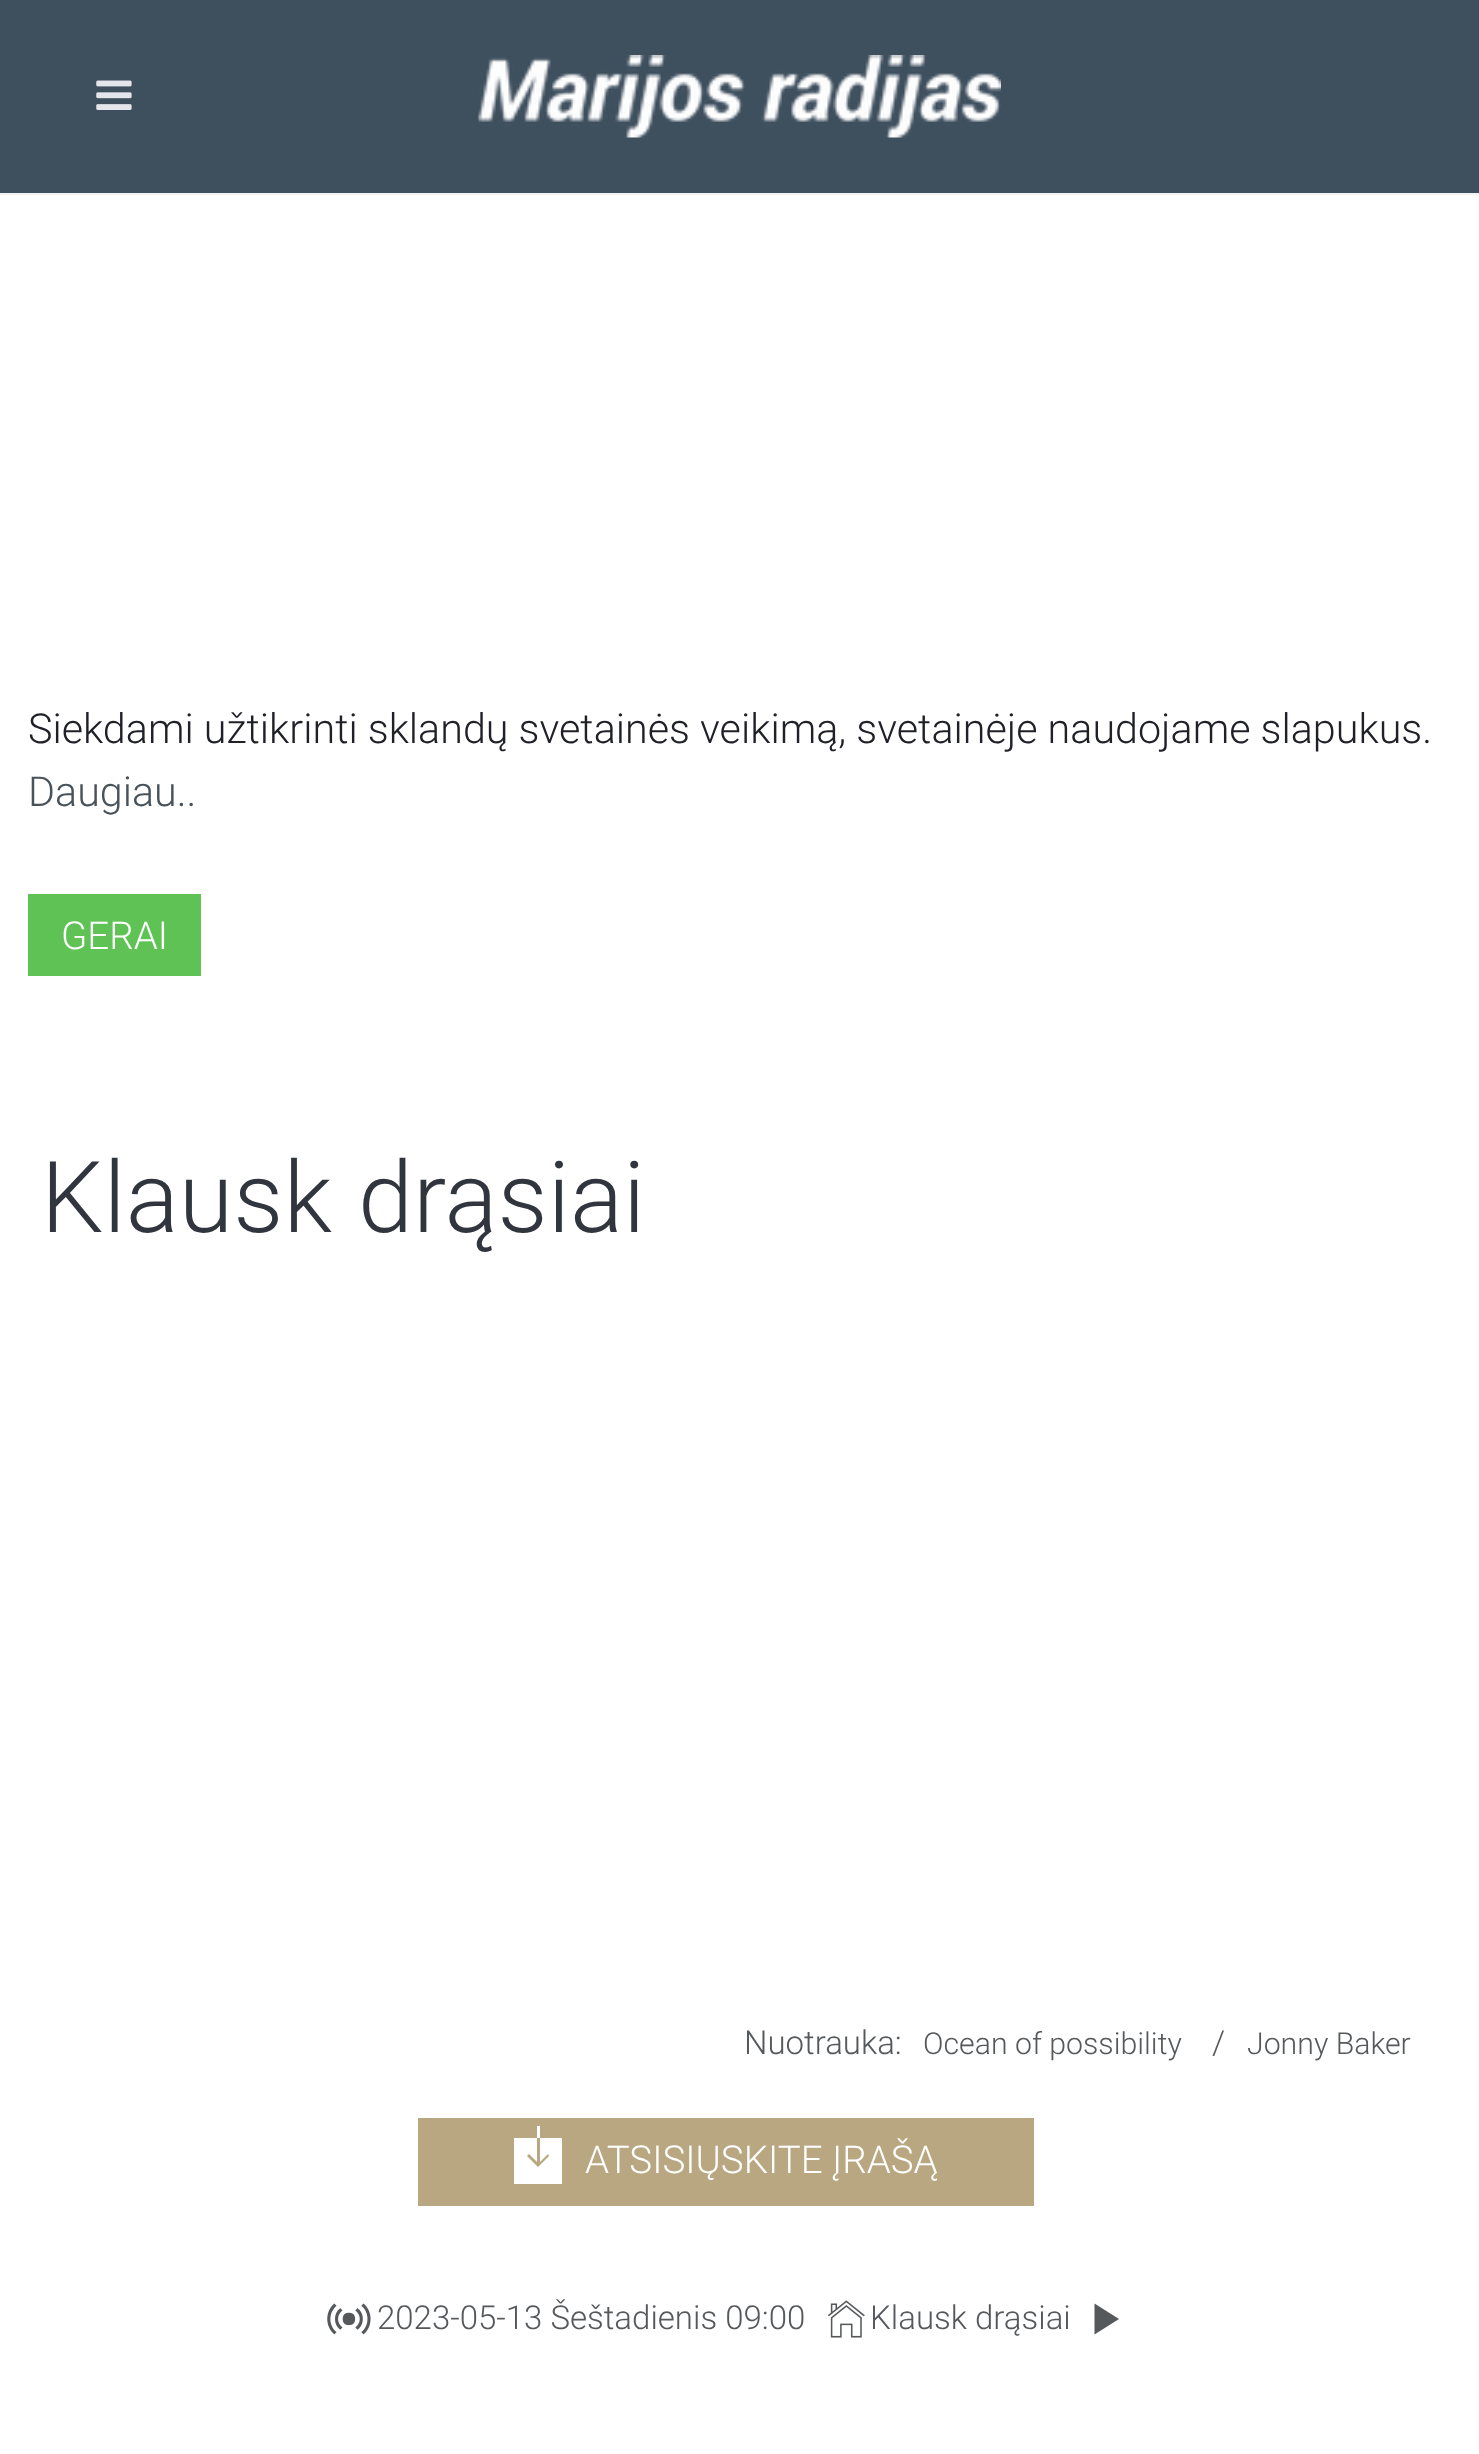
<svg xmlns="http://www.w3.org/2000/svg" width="1479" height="2454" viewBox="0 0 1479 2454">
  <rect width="100%" height="100%" fill="rgb(255,255,255)"/>
  <path d="M0 192V195H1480V3V192Z" fill="rgb(242,242,242)"/>
  <rect x="0" y="0" width="1479" height="193" fill="rgb(62,79,94)"/>
  <image x="96" y="80" width="36" height="30" href="pic1.png"/>
  <image x="478" y="55" width="523" height="83" href="pic2.png"/>
  <text x="28" y="743" font-family="Roboto" font-size="41.25" font-weight="300" fill="rgb(32,33,40)">Siekdami užtikrinti sklandų svetainės veikimą, svetainėje naudojame slapukus.</text>
  <text x="28" y="806" font-family="Roboto" font-size="41.25" font-weight="300" fill="rgb(72,82,89)">Daugiau..</text>
  <rect x="28" y="894" width="173" height="82" fill="rgb(94,194,85)"/>
  <text x="61" y="949" font-family="Roboto" font-size="38.5" font-weight="300" fill="rgb(255,255,255)">GERAI</text>
  <text x="41" y="1232" word-spacing="2" font-family="Roboto" font-size="99" font-weight="300" fill="rgb(49,53,62)">Klausk drąsiai</text>
  <text x="744" y="2054" font-family="Roboto" font-size="33" font-weight="300" fill="rgb(86,89,92)">Nuotrauka:</text>
  <text x="923" y="2054" font-family="Roboto" font-size="30.25" font-weight="300" fill="rgb(86,89,92)">Ocean of possibility</text>
  <text x="1212" y="2054" font-family="Roboto" font-size="33" font-weight="300" fill="rgb(86,89,92)">/</text>
  <text x="1247" y="2054" font-family="Roboto" font-size="30.25" font-weight="300" fill="rgb(86,89,92)">Jonny Baker</text>
  <rect x="418" y="2118" width="616" height="88" fill="rgb(185,167,129)"/>
  <path d="M540 2138H562V2184H514V2138H537V2162L529 2154L527 2156L538 2167L549 2156L548 2154L540 2162ZM537 2138V2126H540V2138Z" fill="rgb(255,255,255)"/>
  <text x="585" y="2173" font-family="Roboto" font-size="38.5" font-weight="300" fill="rgb(255,255,255)">ATSISIŲSKITE ĮRAŠĄ</text>
  <image x="327" y="2303" width="44" height="32" href="pic3.png"/>
  <text x="377" y="2329" font-family="Roboto" font-size="33" font-weight="300" fill="rgb(86,89,92)">2023-05-13 Šeštadienis 09:00</text>
  <image x="827" y="2300" width="38" height="38" href="pic4.png"/>
  <text x="870" y="2329" font-family="Roboto" font-size="33" font-weight="300" fill="rgb(86,89,92)">Klausk drąsiai</text>
  <path d="M1094.5 2303.5L1119 2319L1094.5 2334.5Z" fill="rgb(86,89,92)"/>
</svg>
